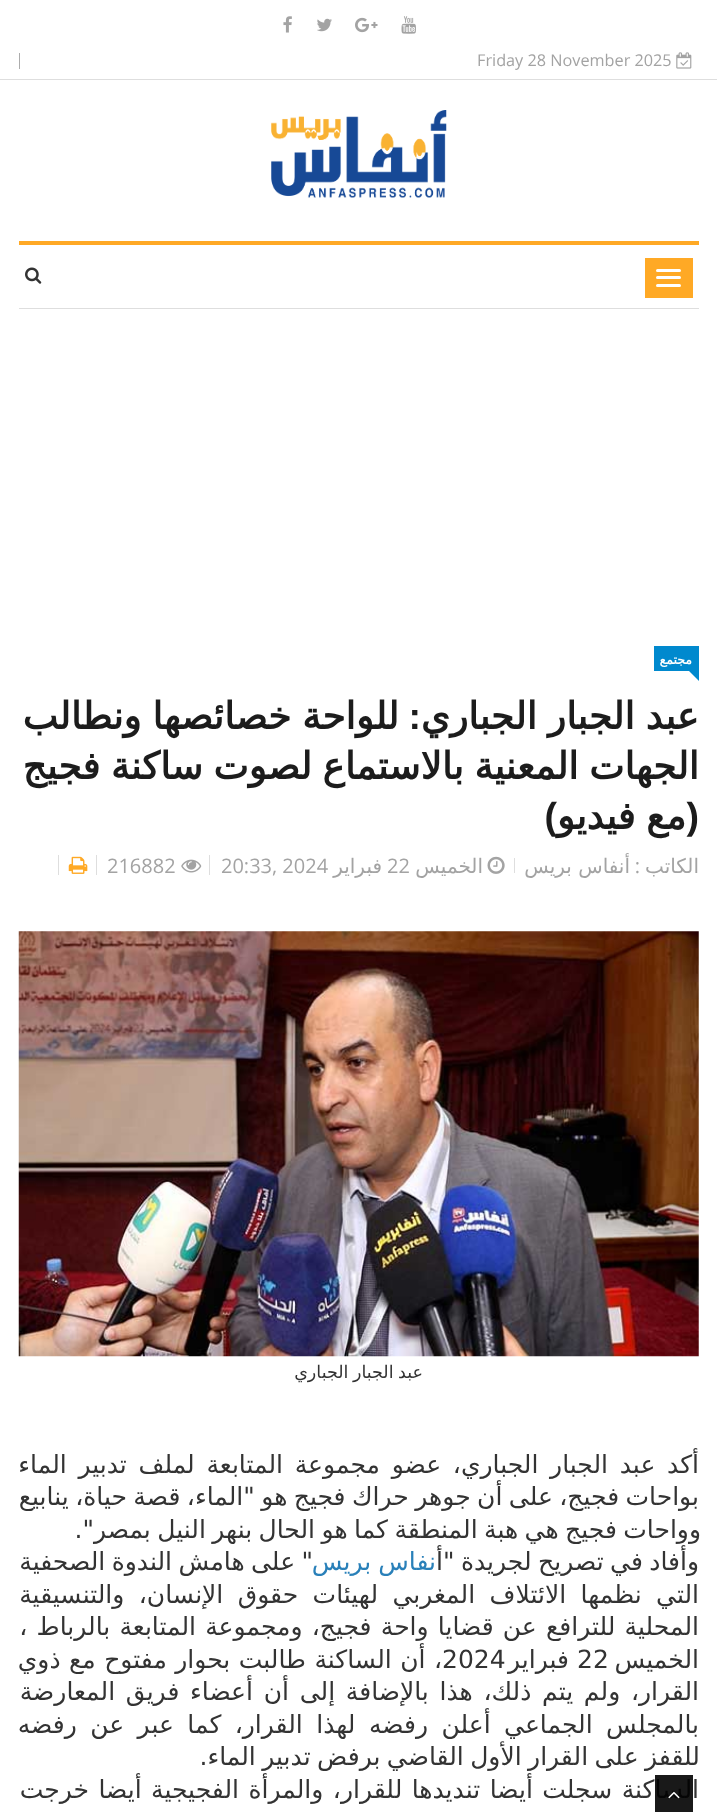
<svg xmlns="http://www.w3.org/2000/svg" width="717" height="1812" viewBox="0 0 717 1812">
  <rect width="100%" height="100%" fill="rgb(255,255,255)"/>
  <rect x="0" y="79" width="717" height="1" fill="rgb(222,222,222)"/>
  <image x="401" y="16" width="15" height="18" href="pic1.png"/>
  <image x="355" y="17" width="23" height="16" href="pic2.png"/>
  <image x="317" y="18" width="15" height="14" href="pic3.png"/>
  <image x="283" y="16" width="9" height="17" href="pic4.png"/>
  <rect x="19" y="53" width="1" height="16" fill="rgb(172,172,172)"/>
  <image x="676" y="52" width="16" height="17" href="pic5.png"/>
  <text x="477" y="66" font-family="Open Sans" font-size="16.25" fill="rgb(163,163,163)">Friday 28 November 2025</text>
  <image x="271" y="110" width="176" height="88" href="pic6.png"/>
  <rect x="19" y="241" width="680" height="4" fill="rgb(255,169,37)"/>
  <rect x="19" y="308" width="680" height="1" fill="rgb(222,222,222)"/>
  <rect x="645" y="258" width="48" height="40" fill="rgb(255,169,37)"/>
  <rect x="656" y="269" width="25" height="3" rx="1.5" fill="rgb(255,255,255)"/>
  <rect x="656" y="276" width="25" height="3" rx="1.5" fill="rgb(255,255,255)"/>
  <rect x="656" y="284" width="25" height="3" rx="1.5" fill="rgb(255,255,255)"/>
  <image x="25" y="267" width="17" height="17" href="pic7.png"/>
  <rect x="654" y="646" width="45" height="25" fill="rgb(0,137,206)"/>
  <text x="692" y="664" font-family="DejaVu Sans" font-size="12.5" font-weight="bold" direction="rtl" fill="rgb(255,255,255)">مجتمع</text>
  <path d="M689 671H699V681Z" fill="rgb(0,137,206)"/>
  <text x="699" y="729" word-spacing="-1" font-family="DejaVu Sans" font-size="37.5" font-weight="bold" direction="rtl" fill="rgb(28,28,28)">عبد الجبار الجباري</text>
  <text x="421" y="729" font-family="Arimo" font-size="37.5" font-weight="bold" direction="rtl" fill="rgb(28,28,28)">:</text>
  <g font-family="DejaVu Sans" font-size="37.5" font-weight="bold" direction="rtl" fill="rgb(28,28,28)">
    <text x="399" y="729" word-spacing="-1">للواحة خصائصها ونطالب</text>
    <text x="699" y="779" word-spacing="-1.5">الجهات المعنية بالاستماع لصوت ساكنة فجيج</text>
  </g>
  <g font-family="Arimo" font-size="37.5" font-weight="bold" direction="rtl" fill="rgb(28,28,28)">
    <text x="699" y="829">(</text>
    <text x="557" y="829">)</text>
  </g>
  <text x="686" y="829" word-spacing="-1.5" font-family="DejaVu Sans" font-size="37.5" font-weight="bold" direction="rtl" fill="rgb(28,28,28)">مع فيديو</text>
  <rect x="514" y="858" width="1" height="15" fill="rgb(222,222,222)"/>
  <text x="699" y="873" font-family="DejaVu Sans" font-size="20" direction="rtl" fill="rgb(163,163,163)">الكاتب</text>
  <text x="640" y="873" font-family="Open Sans" font-size="20" direction="rtl" fill="rgb(163,163,163)">:</text>
  <text x="630" y="873" font-family="DejaVu Sans" font-size="20" direction="rtl" fill="rgb(163,163,163)">أنفاس بريس</text>
  <rect x="209" y="855" width="1" height="20" fill="rgb(222,222,222)"/>
  <image x="487" y="856" width="18" height="18" href="pic8.png"/>
  <text x="483" y="873" font-family="DejaVu Sans" font-size="20" direction="rtl" fill="rgb(163,163,163)">الخميس</text>
  <text x="387" y="873" font-family="Open Sans" font-size="20" fill="rgb(163,163,163)">22</text>
  <text x="382" y="873" font-family="DejaVu Sans" font-size="20" direction="rtl" fill="rgb(163,163,163)">فبراير</text>
  <text x="221" y="873" font-family="Open Sans" font-size="20" fill="rgb(163,163,163)">20:33, 2024</text>
  <rect x="96" y="855" width="1" height="20" fill="rgb(222,222,222)"/>
  <image x="181" y="859" width="21" height="14" href="pic9.png"/>
  <text x="107" y="873" font-family="Open Sans" font-size="20" fill="rgb(163,163,163)">216882</text>
  <rect x="58" y="855" width="1" height="20" fill="rgb(222,222,222)"/>
  <image x="68" y="856" width="20" height="18" href="pic10.png"/>
  <image x="18" y="931" width="681" height="426" href="pic11.png"/>
  <text x="423" y="1378" word-spacing="-1" font-family="DejaVu Sans" font-size="17.5" direction="rtl" fill="rgb(51,51,51)">عبد الجبار الجباري</text>
  <g font-family="DejaVu Sans" font-size="25" direction="rtl" fill="rgb(51,51,51)">
    <text>
      <tspan x="699" y="1473" word-spacing="3.75">أكد عبد الجبار الجباري، عضو مجموعة المتابعة لملف تدبير الماء</tspan>
      <tspan x="699" y="1505" word-spacing="-1.5">بواحات فجيج، على أن جوهر حراك فجيج هو "الماء، قصة حياة، ينابيع</tspan>
    </text>
    <text x="701" y="1538" word-spacing="-1.5">وواحات فجيج هي هبة المنطقة كما هو الحال بنهر النيل بمصر".</text>
    <text x="699" y="1570" word-spacing="-1.5">وأفاد في تصريح لجريدة "أ</text>
  </g>
  <text x="436" y="1570" word-spacing="-1" font-family="DejaVu Sans" font-size="25" direction="rtl" fill="rgb(41,128,185)">نفاس بريس</text>
  <g font-family="DejaVu Sans" font-size="25" direction="rtl" fill="rgb(51,51,51)">
    <text x="313" y="1570" word-spacing="-1.5">" على هامش الندوة الصحفية</text>
    <text>
      <tspan x="699" y="1603" word-spacing="6.5">التي نظمها الائتلاف المغربي لهيئات حقوق الإنسان، والتنسيقية</tspan>
      <tspan x="699" y="1635" word-spacing="1.25">المحلية للترافع عن قضايا واحة فجيج، ومجموعة المتابعة بالرباط ،</tspan>
      <tspan x="699" y="1668">الخميس</tspan>
    </text>
  </g>
  <text x="577" y="1668" font-family="DejaVu Sans" font-size="25" fill="rgb(51,51,51)">22</text>
  <text x="569" y="1668" font-family="DejaVu Sans" font-size="25" direction="rtl" fill="rgb(51,51,51)">فبراير</text>
  <text x="442" y="1668" font-family="DejaVu Sans" font-size="25" fill="rgb(51,51,51)">2024</text>
  <g font-family="DejaVu Sans" font-size="25" direction="rtl" fill="rgb(51,51,51)">
    <text x="442" y="1668" word-spacing="0.5">، أن الساكنة طالبت بحوار مفتوح مع ذوي</text>
    <text>
      <tspan x="699" y="1700" word-spacing="2.75">القرار، ولم يتم ذلك، هذا بالإضافة إلى أن أعضاء فريق المعارضة</tspan>
      <tspan x="699" y="1733" word-spacing="5.5">بالمجلس الجماعي أعلن رفضه لهذا القرار، كما عبر عن رفضه</tspan>
    </text>
    <text x="700" y="1765" word-spacing="-1.5">للقفز على القرار الأول القاضي برفض تدبير الماء.</text>
    <text x="699" y="1798" word-spacing="1.5">الساكنة سجلت أيضا تنديدها للقرار، والمرأة الفجيجية أيضا خرجت</text>
  </g>
  <rect x="655" y="1775" width="38" height="37" fill="rgba(0,0,0,0.9)"/>
  <image x="668" y="1791" width="12" height="8" href="pic12.png"/>
</svg>
